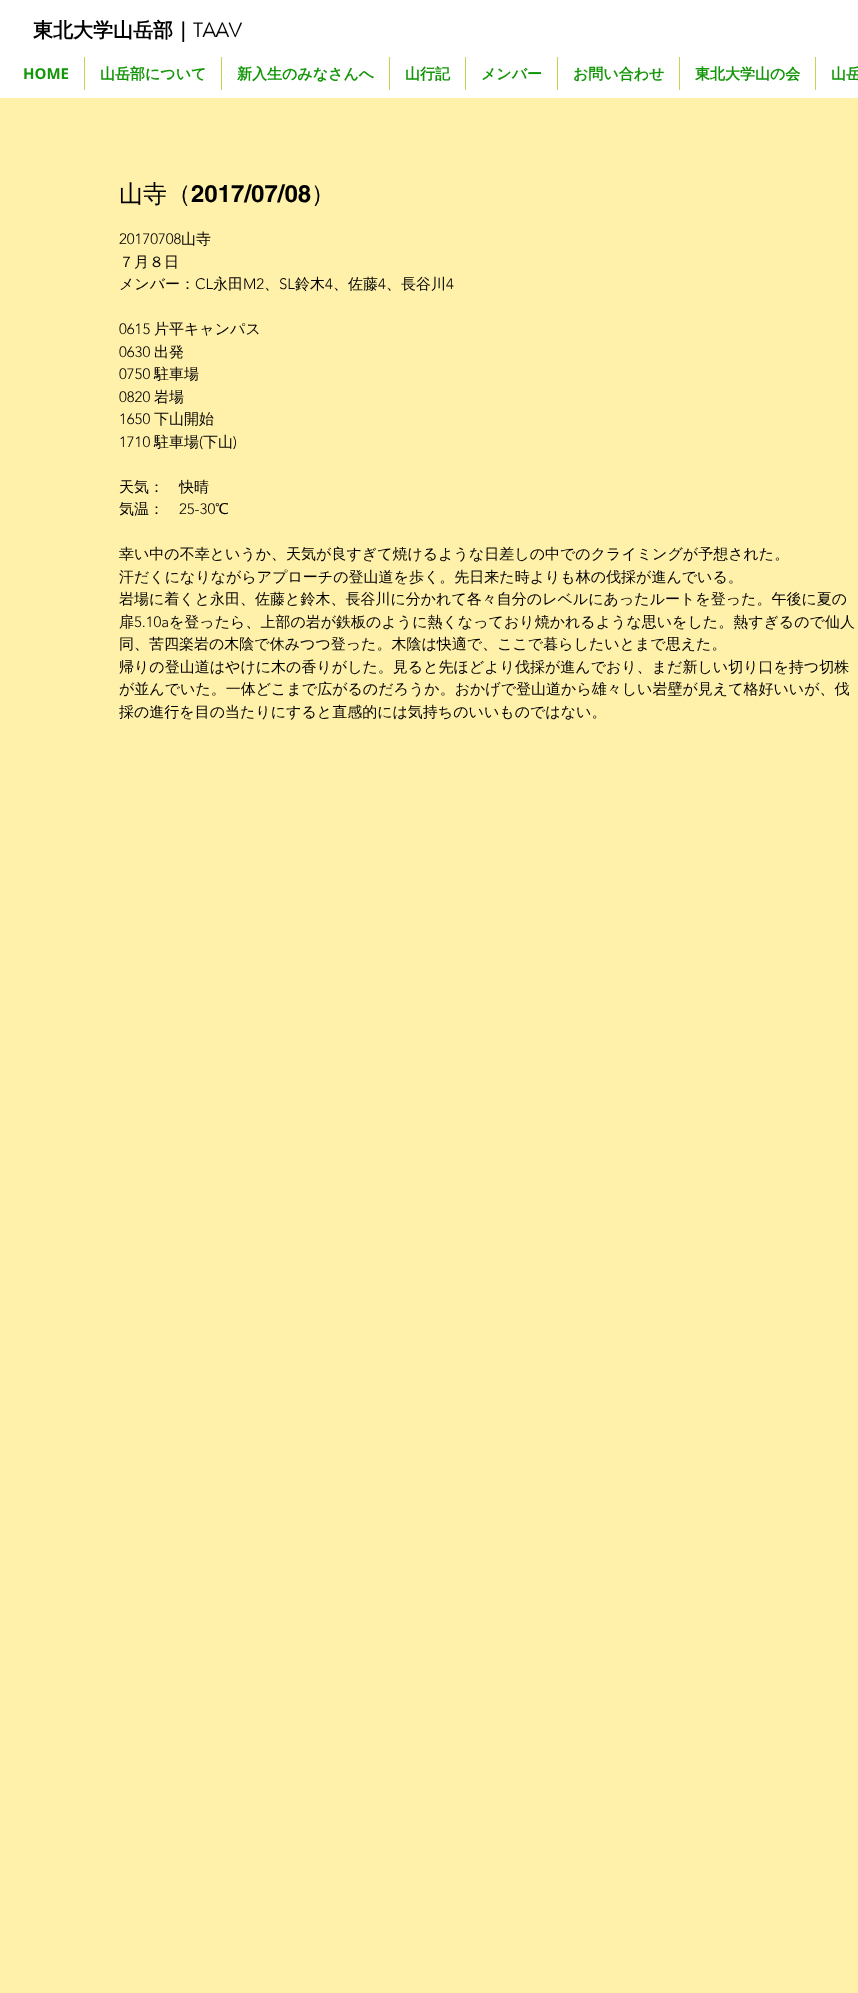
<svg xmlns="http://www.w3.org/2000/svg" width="858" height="1993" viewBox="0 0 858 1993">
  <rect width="100%" height="100%" fill="rgb(255,240,170)"/>
  <rect x="0" y="0" width="858" height="98" fill="rgb(255,255,255)"/>
  <text x="33" y="37" font-family="WenQuanYi Zen Hei" font-size="20" font-weight="bold" fill="rgb(0,0,0)">東北大学山岳部｜</text>
  <text x="193" y="37" font-family="'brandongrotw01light'" font-size="20" font-weight="bold" fill="rgb(0,0,0)">TAAV</text>
  <text x="23" y="79" font-family="Open Sans" font-size="15" font-weight="bold" fill="rgb(19,150,8)">HOME</text>
  <rect x="84" y="57" width="1" height="33" fill="rgb(186,218,85)"/>
  <text x="100" y="79" font-family="WenQuanYi Zen Hei" font-size="15" font-weight="bold" fill="rgb(19,150,8)">山岳部について</text>
  <rect x="221" y="57" width="1" height="33" fill="rgb(186,218,85)"/>
  <text x="237" y="79" font-family="WenQuanYi Zen Hei" font-size="15" font-weight="bold" fill="rgb(19,150,8)">新入生のみなさんへ</text>
  <rect x="389" y="57" width="1" height="33" fill="rgb(186,218,85)"/>
  <text x="405" y="79" font-family="WenQuanYi Zen Hei" font-size="15" font-weight="bold" fill="rgb(19,150,8)">山行記</text>
  <rect x="465" y="57" width="1" height="33" fill="rgb(186,218,85)"/>
  <text x="481" y="79" font-family="WenQuanYi Zen Hei" font-size="15" font-weight="bold" fill="rgb(19,150,8)">メンバー</text>
  <rect x="557" y="57" width="1" height="33" fill="rgb(186,218,85)"/>
  <text x="573" y="79" font-family="WenQuanYi Zen Hei" font-size="15" font-weight="bold" fill="rgb(19,150,8)">お問い合わせ</text>
  <rect x="679" y="57" width="1" height="33" fill="rgb(186,218,85)"/>
  <text x="695" y="79" font-family="WenQuanYi Zen Hei" font-size="15" font-weight="bold" fill="rgb(19,150,8)">東北大学山の会</text>
  <rect x="815" y="57" width="1" height="33" fill="rgb(186,218,85)"/>
  <text x="831" y="79" font-family="WenQuanYi Zen Hei" font-size="15" font-weight="bold" fill="rgb(19,150,8)">山岳</text>
  <text x="119" y="202" font-family="WenQuanYi Zen Hei" font-size="24" font-weight="500" fill="rgb(0,0,0)">山寺（</text>
  <text x="191" y="202" font-family="helvetica" font-size="24" font-weight="bold" fill="rgb(0,0,0)">2017/07/08</text>
  <text x="311" y="202" font-family="WenQuanYi Zen Hei" font-size="24" font-weight="500" fill="rgb(0,0,0)">）</text>
  <text x="119" y="244" font-family="'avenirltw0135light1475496'" font-size="15" font-weight="300" fill="rgb(0,0,0)">20170708</text>
  <g font-family="WenQuanYi Zen Hei" font-size="15" font-weight="500" fill="rgb(0,0,0)">
    <text x="181" y="244">山寺</text>
    <text>
      <tspan x="119" y="267">７月８日</tspan>
      <tspan x="119" y="289">メンバー：</tspan>
    </text>
  </g>
  <text x="195" y="289" font-family="'avenirltw0135light1475496'" font-size="15" font-weight="300" fill="rgb(0,0,0)">CL</text>
  <text x="213" y="289" font-family="WenQuanYi Zen Hei" font-size="15" font-weight="500" fill="rgb(0,0,0)">永田</text>
  <text x="243" y="289" font-family="'avenirltw0135light1475496'" font-size="15" font-weight="300" fill="rgb(0,0,0)">M2</text>
  <text x="264" y="289" font-family="WenQuanYi Zen Hei" font-size="15" font-weight="500" fill="rgb(0,0,0)">、</text>
  <text x="279" y="289" font-family="'avenirltw0135light1475496'" font-size="15" font-weight="300" fill="rgb(0,0,0)">SL</text>
  <text x="295" y="289" font-family="WenQuanYi Zen Hei" font-size="15" font-weight="500" fill="rgb(0,0,0)">鈴木</text>
  <text x="325" y="289" font-family="'avenirltw0135light1475496'" font-size="15" font-weight="300" fill="rgb(0,0,0)">4</text>
  <text x="333" y="289" font-family="WenQuanYi Zen Hei" font-size="15" font-weight="500" fill="rgb(0,0,0)">、佐藤</text>
  <text x="378" y="289" font-family="'avenirltw0135light1475496'" font-size="15" font-weight="300" fill="rgb(0,0,0)">4</text>
  <text x="386" y="289" font-family="WenQuanYi Zen Hei" font-size="15" font-weight="500" fill="rgb(0,0,0)">、長谷川</text>
  <g font-family="'avenirltw0135light1475496'" font-size="15" font-weight="300" fill="rgb(0,0,0)">
    <text x="446" y="289">4</text>
    <text x="119" y="334">0615</text>
  </g>
  <text x="154" y="334" font-family="WenQuanYi Zen Hei" font-size="15" font-weight="500" fill="rgb(0,0,0)">片平キャンパス</text>
  <text x="119" y="357" font-family="'avenirltw0135light1475496'" font-size="15" font-weight="300" fill="rgb(0,0,0)">0630</text>
  <text x="154" y="357" font-family="WenQuanYi Zen Hei" font-size="15" font-weight="500" fill="rgb(0,0,0)">出発</text>
  <text x="119" y="379" font-family="'avenirltw0135light1475496'" font-size="15" font-weight="300" fill="rgb(0,0,0)">0750</text>
  <text x="154" y="379" font-family="WenQuanYi Zen Hei" font-size="15" font-weight="500" fill="rgb(0,0,0)">駐車場</text>
  <text x="119" y="402" font-family="'avenirltw0135light1475496'" font-size="15" font-weight="300" fill="rgb(0,0,0)">0820</text>
  <text x="154" y="402" font-family="WenQuanYi Zen Hei" font-size="15" font-weight="500" fill="rgb(0,0,0)">岩場</text>
  <text x="119" y="424" font-family="'avenirltw0135light1475496'" font-size="15" font-weight="300" fill="rgb(0,0,0)">1650</text>
  <text x="154" y="424" font-family="WenQuanYi Zen Hei" font-size="15" font-weight="500" fill="rgb(0,0,0)">下山開始</text>
  <text x="119" y="447" font-family="'avenirltw0135light1475496'" font-size="15" font-weight="300" fill="rgb(0,0,0)">1710</text>
  <text x="154" y="447" font-family="WenQuanYi Zen Hei" font-size="15" font-weight="500" fill="rgb(0,0,0)">駐車場</text>
  <text x="199" y="447" font-family="'avenirltw0135light1475496'" font-size="15" font-weight="300" fill="rgb(0,0,0)">(</text>
  <text x="203" y="447" font-family="WenQuanYi Zen Hei" font-size="15" font-weight="500" fill="rgb(0,0,0)">下山</text>
  <text x="233" y="447" font-family="'avenirltw0135light1475496'" font-size="15" font-weight="300" fill="rgb(0,0,0)">)</text>
  <g font-family="WenQuanYi Zen Hei" font-size="15" font-weight="500" fill="rgb(0,0,0)">
    <text>
      <tspan x="119" y="492">天気：　快晴</tspan>
      <tspan x="119" y="514">気温：</tspan>
    </text>
  </g>
  <text x="179" y="514" font-family="'avenirltw0135light1475496'" font-size="15" font-weight="300" fill="rgb(0,0,0)">25-30</text>
  <g font-family="WenQuanYi Zen Hei" font-size="15" font-weight="500" fill="rgb(0,0,0)">
    <text x="215" y="514">℃</text>
    <text>
      <tspan x="119" y="559">幸い中の不幸というか、天気が良すぎて焼けるような日差しの中でのクライミングが予想された。</tspan>
      <tspan x="119" y="582">汗だくになりながらアプローチの登山道を歩く。先日来た時よりも林の伐採が進んでいる。</tspan>
      <tspan x="119" y="604">岩場に着くと永田、佐藤と鈴木、長谷川に分かれて各々自分のレベルにあったルートを登った。午後に夏の</tspan>
      <tspan x="119" y="627">扉</tspan>
    </text>
  </g>
  <text x="134" y="627" font-family="'avenirltw0135light1475496'" font-size="15" font-weight="300" fill="rgb(0,0,0)">5.10a</text>
  <g font-family="WenQuanYi Zen Hei" font-size="15" font-weight="500" fill="rgb(0,0,0)">
    <text x="169" y="627">を登ったら、上部の岩が鉄板のように熱くなっており焼かれるような思いをした。熱すぎるので仙人</text>
    <text>
      <tspan x="119" y="649">同、苦四楽岩の木陰で休みつつ登った。木陰は快適で、ここで暮らしたいとまで思えた。</tspan>
      <tspan x="119" y="672">帰りの登山道はやけに木の香りがした。見ると先ほどより伐採が進んでおり、まだ新しい切り口を持つ切株</tspan>
      <tspan x="119" y="694">が並んでいた。一体どこまで広がるのだろうか。おかげで登山道から雄々しい岩壁が見えて格好いいが、伐</tspan>
      <tspan x="119" y="717">採の進行を目の当たりにすると直感的には気持ちのいいものではない。</tspan>
    </text>
  </g>
</svg>
